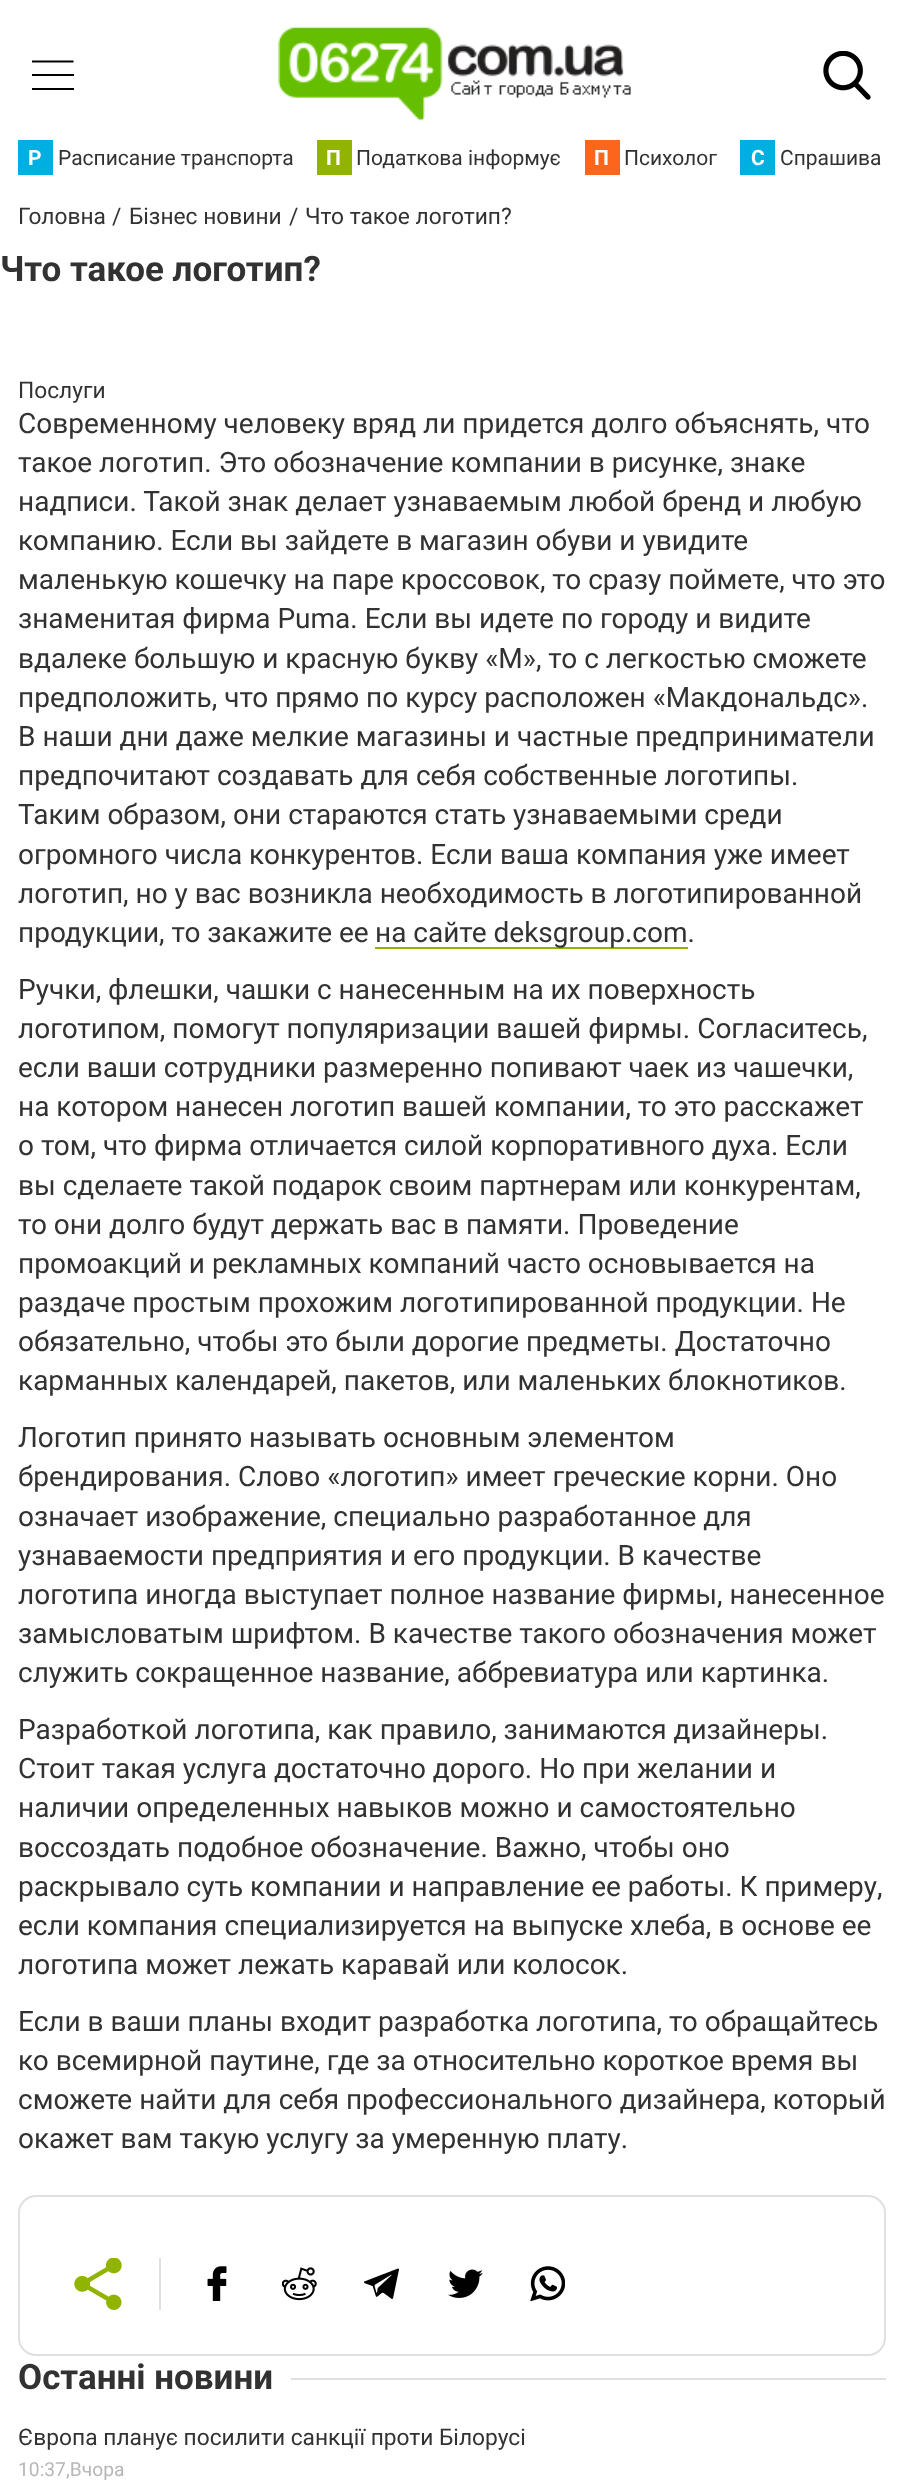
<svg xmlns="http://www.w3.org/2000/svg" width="902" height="2492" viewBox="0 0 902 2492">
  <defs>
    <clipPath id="clip1"><rect x="32" y="54" width="42" height="42"/></clipPath>
  </defs>
  <rect width="100%" height="100%" fill="rgb(255,255,255)"/>
  <g clip-path="url(#clip1)">
    <path d="M31.5 61.5H73.5" fill="none" stroke="rgb(0,0,0)" stroke-width="2.1"/>
  </g>
  <rect x="32" y="74" width="42" height="2" fill="rgb(0,0,0)"/>
  <rect x="32" y="88" width="42" height="2" fill="rgb(0,0,0)"/>
  <image x="278" y="26" width="353" height="95" href="pic1.png"/>
  <image x="823" y="51" width="48" height="49" href="pic2.png"/>
  <rect x="18" y="140" width="35" height="35" fill="rgb(0,175,225)"/>
  <text x="28" y="165" font-family="Roboto" font-size="21" font-weight="bold" fill="rgb(255,255,255)">Р</text>
  <text x="58" y="165" font-family="Roboto" font-size="21" fill="rgb(50,50,50)">Расписание транспорта</text>
  <rect x="317" y="140" width="35" height="35" fill="rgb(144,180,0)"/>
  <text x="326" y="165" font-family="Roboto" font-size="21" font-weight="bold" fill="rgb(255,255,255)">П</text>
  <text x="356" y="165" font-family="Roboto" font-size="21" fill="rgb(50,50,50)">Податкова інформує</text>
  <rect x="585" y="140" width="35" height="35" fill="rgb(251,102,28)"/>
  <text x="594" y="165" font-family="Roboto" font-size="21" font-weight="bold" fill="rgb(255,255,255)">П</text>
  <text x="624" y="165" font-family="Roboto" font-size="21" fill="rgb(50,50,50)">Психолог</text>
  <rect x="740" y="140" width="35" height="35" fill="rgb(0,175,225)"/>
  <text x="751" y="165" font-family="Roboto" font-size="21" font-weight="bold" fill="rgb(255,255,255)">С</text>
  <text x="780" y="165" font-family="Roboto" font-size="21" fill="rgb(50,50,50)">Спрашива</text>
  <g font-family="Roboto" font-size="22.75" fill="rgb(50,50,50)">
    <text x="18" y="224">Головна</text>
    <text x="112" y="224">/</text>
    <text x="129" y="224">Бізнес новини</text>
    <text x="289" y="224">/</text>
    <text x="305" y="224">Что такое логотип?</text>
  </g>
  <text x="0" y="281" font-family="Roboto" font-size="35" font-weight="bold" fill="rgb(50,50,50)">Что такое логотип?</text>
  <text x="18" y="398" font-family="Roboto" font-size="22.75" fill="rgb(50,50,50)">Послуги</text>
  <g font-family="Roboto" font-size="28" fill="rgb(50,50,50)">
    <text>
      <tspan x="18" y="433">Современному человеку вряд ли придется долго объяснять, что</tspan>
      <tspan x="18" y="472">такое логотип. Это обозначение компании в рисунке, знаке</tspan>
      <tspan x="18" y="511">надписи. Такой знак делает узнаваемым любой бренд и любую</tspan>
      <tspan x="18" y="550">компанию. Если вы зайдете в магазин обуви и увидите</tspan>
      <tspan x="18" y="589">маленькую кошечку на паре кроссовок, то сразу поймете, что это</tspan>
      <tspan x="18" y="628">знаменитая фирма Puma. Если вы идете по городу и видите</tspan>
      <tspan x="18" y="668">вдалеке большую и красную букву «М», то с легкостью сможете</tspan>
      <tspan x="18" y="707">предположить, что прямо по курсу расположен «Макдональдс».</tspan>
      <tspan x="18" y="746">В наши дни даже мелкие магазины и частные предприниматели</tspan>
      <tspan x="18" y="785">предпочитают создавать для себя собственные логотипы.</tspan>
      <tspan x="18" y="824">Таким образом, они стараются стать узнаваемыми среди</tspan>
      <tspan x="18" y="864">огромного числа конкурентов. Если ваша компания уже имеет</tspan>
      <tspan x="18" y="903">логотип, но у вас возникла необходимость в логотипированной</tspan>
      <tspan x="18" y="942">продукции, то закажите ее</tspan>
    </text>
  </g>
  <rect x="375" y="947" width="313" height="2" fill="rgb(144,180,0)"/>
  <g font-family="Roboto" font-size="28" fill="rgb(50,50,50)">
    <text x="375" y="942">на сайте deksgroup.com.</text>
    <text>
      <tspan x="18" y="999">Ручки, флешки, чашки с нанесенным на их поверхность</tspan>
      <tspan x="18" y="1038">логотипом, помогут популяризации вашей фирмы. Согласитесь,</tspan>
      <tspan x="18" y="1077">если ваши сотрудники размеренно попивают чаек из чашечки,</tspan>
      <tspan x="18" y="1116">на котором нанесен логотип вашей компании, то это расскажет</tspan>
      <tspan x="18" y="1155">о том, что фирма отличается силой корпоративного духа. Если</tspan>
      <tspan x="18" y="1195">вы сделаете такой подарок своим партнерам или конкурентам,</tspan>
      <tspan x="18" y="1234">то они долго будут держать вас в памяти. Проведение</tspan>
      <tspan x="18" y="1273">промоакций и рекламных компаний часто основывается на</tspan>
      <tspan x="18" y="1312">раздаче простым прохожим логотипированной продукции. Не</tspan>
      <tspan x="18" y="1351">обязательно, чтобы это были дорогие предметы. Достаточно</tspan>
      <tspan x="18" y="1390">карманных календарей, пакетов, или маленьких блокнотиков.</tspan>
    </text>
    <text>
      <tspan x="18" y="1447">Логотип принято называть основным элементом</tspan>
      <tspan x="18" y="1486">брендирования. Слово «логотип» имеет греческие корни. Оно</tspan>
      <tspan x="18" y="1526">означает изображение, специально разработанное для</tspan>
      <tspan x="18" y="1565">узнаваемости предприятия и его продукции. В качестве</tspan>
      <tspan x="18" y="1604">логотипа иногда выступает полное название фирмы, нанесенное</tspan>
      <tspan x="18" y="1643">замысловатым шрифтом. В качестве такого обозначения может</tspan>
      <tspan x="18" y="1682">служить сокращенное название, аббревиатура или картинка.</tspan>
    </text>
    <text>
      <tspan x="18" y="1739">Разработкой логотипа, как правило, занимаются дизайнеры.</tspan>
      <tspan x="18" y="1778">Стоит такая услуга достаточно дорого. Но при желании и</tspan>
      <tspan x="18" y="1817">наличии определенных навыков можно и самостоятельно</tspan>
      <tspan x="18" y="1857">воссоздать подобное обозначение. Важно, чтобы оно</tspan>
      <tspan x="18" y="1896">раскрывало суть компании и направление ее работы. К примеру,</tspan>
      <tspan x="18" y="1935">если компания специализируется на выпуске хлеба, в основе ее</tspan>
      <tspan x="18" y="1974">логотипа может лежать каравай или колосок.</tspan>
    </text>
    <text>
      <tspan x="18" y="2031">Если в ваши планы входит разработка логотипа, то обращайтесь</tspan>
      <tspan x="18" y="2070">ко всемирной паутине, где за относительно короткое время вы</tspan>
      <tspan x="18" y="2109">сможете найти для себя профессионального дизайнера, который</tspan>
      <tspan x="18" y="2148">окажет вам такую услугу за умеренную плату.</tspan>
    </text>
  </g>
  <rect x="19" y="2196" width="866" height="159" rx="17" fill="none" stroke="rgb(224,224,224)" stroke-width="2"/>
  <rect x="159" y="2258" width="2" height="52" fill="rgb(224,224,224)"/>
  <image x="74" y="2258" width="48" height="52" href="pic3.png"/>
  <image x="207" y="2266" width="20" height="35" href="pic4.png"/>
  <image x="282" y="2267" width="35" height="34" href="pic5.png"/>
  <image x="364" y="2268" width="35" height="31" href="pic6.png"/>
  <image x="448" y="2269" width="35" height="29" href="pic7.png"/>
  <image x="530" y="2266" width="35" height="35" href="pic8.png"/>
  <text x="18" y="2389" font-family="Roboto" font-size="35" font-weight="bold" fill="rgb(50,50,50)">Останні новини</text>
  <rect x="291" y="2378" width="595" height="2" fill="rgb(224,224,224)"/>
  <text x="18" y="2445" font-family="Roboto" font-size="22.75" fill="rgb(50,50,50)">Європа планує посилити санкції проти Білорусі</text>
  <text x="18" y="2476" font-family="Roboto" font-size="19.25" fill="rgb(183,183,183)">10:37,Вчора</text>
</svg>
